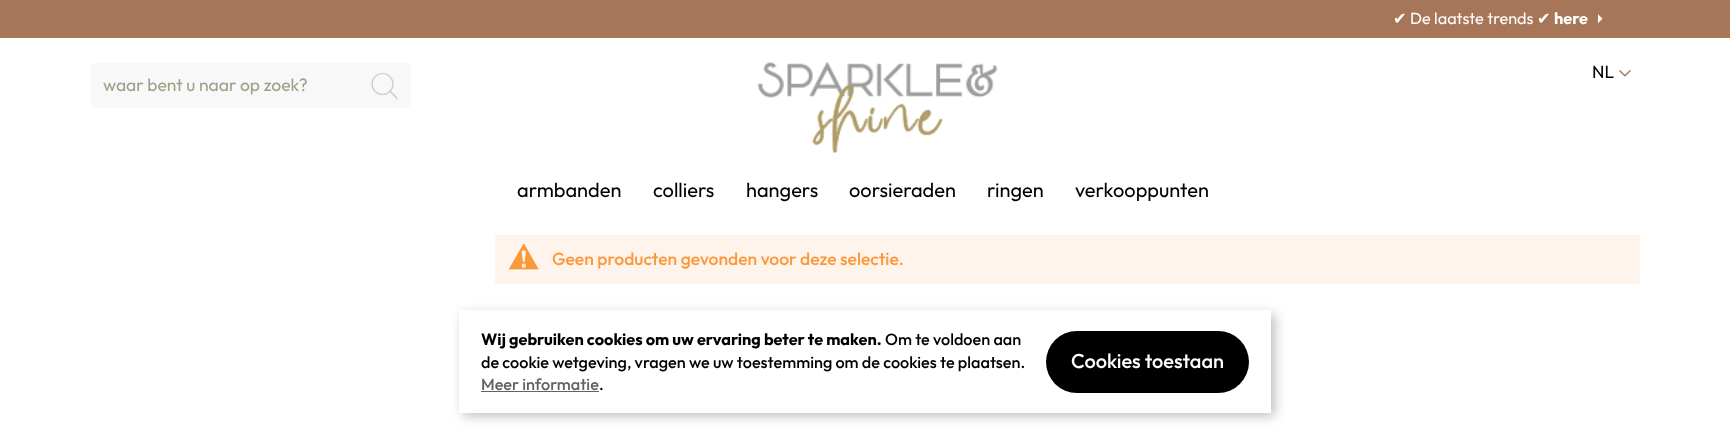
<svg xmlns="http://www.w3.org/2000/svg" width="1730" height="437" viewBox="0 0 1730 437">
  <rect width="100%" height="100%" fill="rgb(255,255,255)"/>
  <rect x="0" y="0" width="1730" height="38" fill="rgb(167,117,88)"/>
  <text x="1393" y="24" font-family="DejaVu Sans" font-size="16.25" fill="rgb(255,255,255)">✔</text>
  <text x="1410" y="24" font-family="Outfit" font-size="16.25" fill="rgb(255,255,255)">De laatste trends</text>
  <text x="1537" y="24" font-family="DejaVu Sans" font-size="16.25" fill="rgb(255,255,255)">✔</text>
  <text x="1554" y="24" font-family="Outfit" font-size="16.25" font-weight="bold" fill="rgb(255,255,255)">here</text>
  <image x="1598" y="14" width="5" height="10" href="pic1.png"/>
  <image x="757" y="62" width="241" height="91" href="pic2.png"/>
  <text x="1592" y="78" font-family="Outfit" font-size="17.5" fill="rgb(0,0,0)">NL</text>
  <image x="1619" y="70" width="12" height="7" href="pic3.png"/>
  <rect x="90" y="63" width="321" height="45" rx="6" fill="rgb(248,248,248)"/>
  <text x="103" y="91" font-family="Outfit" font-size="17.5" fill="rgb(152,162,134)">waar bent u naar op zoek?</text>
  <circle cx="382.5" cy="84" r="10.5" fill="none" stroke="rgb(200,205,191)" stroke-width="1.2"/>
  <path d="M390 91L397.5 99" fill="none" stroke="rgb(200,205,191)" stroke-width="1.2"/>
  <g font-family="Outfit" font-size="20" fill="rgb(0,0,0)">
    <text x="517" y="197">armbanden</text>
    <text x="653" y="197">colliers</text>
    <text x="746" y="197">hangers</text>
    <text x="849" y="197">oorsieraden</text>
    <text x="987" y="197">ringen</text>
    <text x="1075" y="197">verkooppunten</text>
  </g>
  <rect x="495" y="235" width="1145" height="49" fill="rgb(254,244,235)"/>
  <image x="508" y="244" width="31" height="26" href="pic4.png"/>
  <text x="552" y="265" font-family="Outfit" font-size="17.5" font-weight="500" fill="rgb(250,152,58)">Geen producten gevonden voor deze selectie.</text>
  <rect x="463" y="314" width="812" height="102" fill="rgba(0,0,0,0.25)" filter="blur(6px)"/>
  <rect x="459" y="310" width="812" height="103" fill="rgb(255,255,255)"/>
  <text x="481" y="345" font-family="Outfit" font-size="16.25" font-weight="bold" fill="rgb(0,0,0)">Wij gebruiken cookies om uw ervaring beter te maken.</text>
  <g font-family="Outfit" font-size="16.25" font-weight="500" fill="rgb(0,0,0)">
    <text x="885" y="345">Om te voldoen aan</text>
    <text x="481" y="368">de cookie wetgeving, vragen we uw toestemming om de cookies te plaatsen.</text>
  </g>
  <text x="481" y="390" font-family="Outfit" font-size="16.25" font-weight="500" fill="rgb(98,98,98)">Meer informatie</text>
  <rect x="481" y="391" width="118" height="1" fill="rgb(98,98,98)"/>
  <text x="599" y="390" font-family="Outfit" font-size="16.25" font-weight="500" fill="rgb(0,0,0)">.</text>
  <rect x="1046" y="331" width="203" height="62" rx="31" fill="rgb(0,0,0)"/>
  <text x="1071" y="368" font-family="Outfit" font-size="20" font-weight="500" fill="rgb(255,255,255)">Cookies toestaan</text>
</svg>
